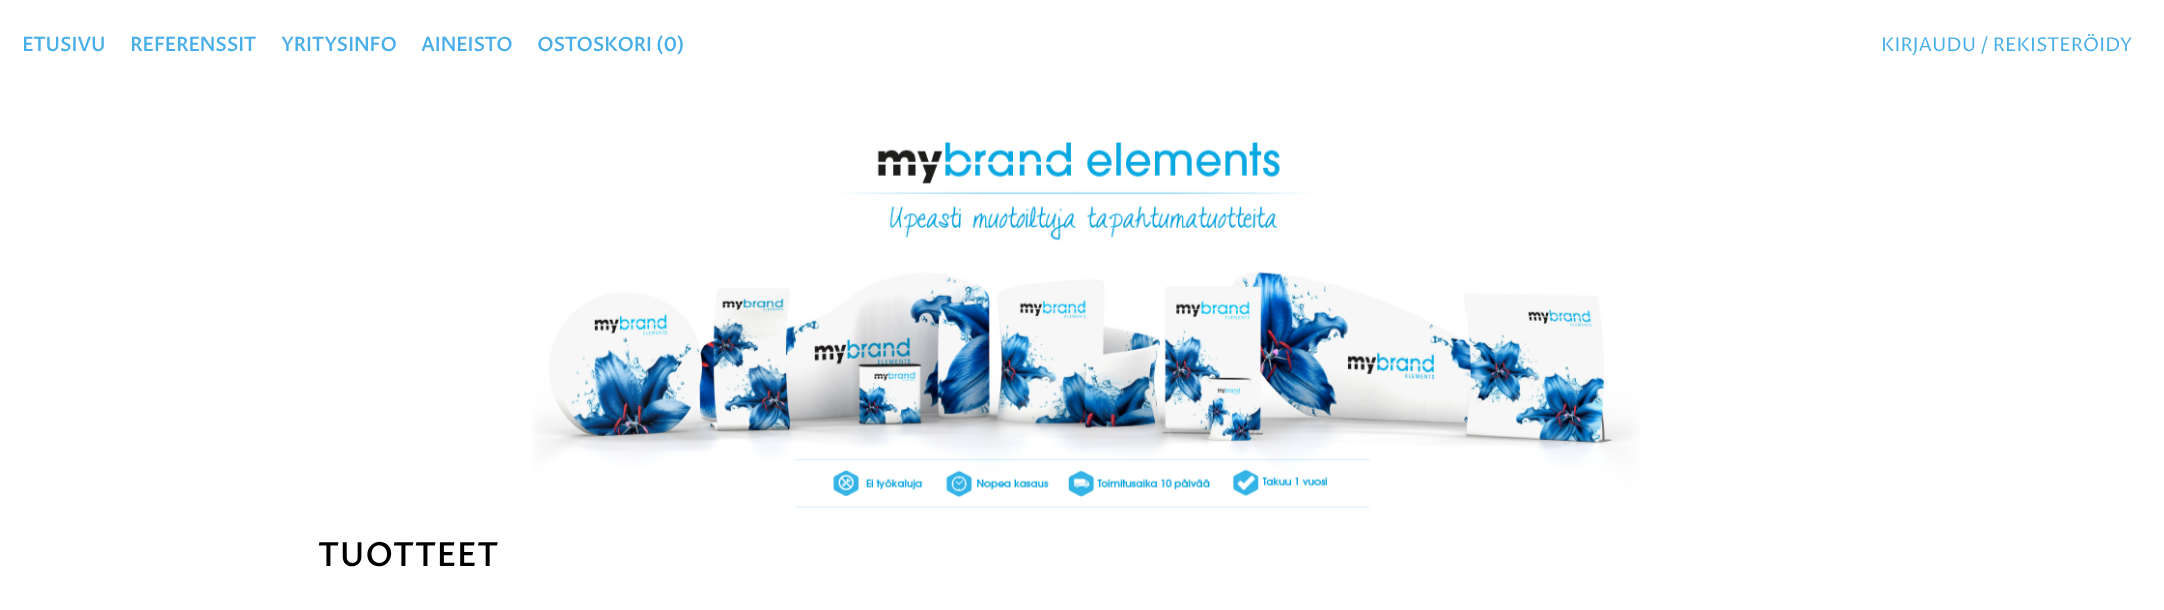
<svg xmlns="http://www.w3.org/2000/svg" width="2164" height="610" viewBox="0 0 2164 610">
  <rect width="100%" height="100%" fill="rgb(255,255,255)"/>
  <g font-family="Proza Libre" font-size="19" font-weight="bold" fill="rgb(72,174,231)">
    <text x="22" y="51">ETUSIVU</text>
    <text x="130" y="51">REFERENSSIT</text>
    <text x="281" y="51">YRITYSINFO</text>
    <text x="421" y="51">AINEISTO</text>
    <text x="537" y="51">OSTOSKORI (0)</text>
  </g>
  <text x="1881" y="51" font-family="Proza Libre" font-size="19" fill="rgb(72,174,231)">KIRJAUDU / REKISTERÖIDY</text>
  <image x="532" y="141" width="1108" height="367" href="pic1.png"/>
  <text x="318" y="566" font-family="Proza Libre" font-size="32" font-weight="bold" letter-spacing="1.25" fill="rgb(0,0,0)">TUOTTEET</text>
</svg>
